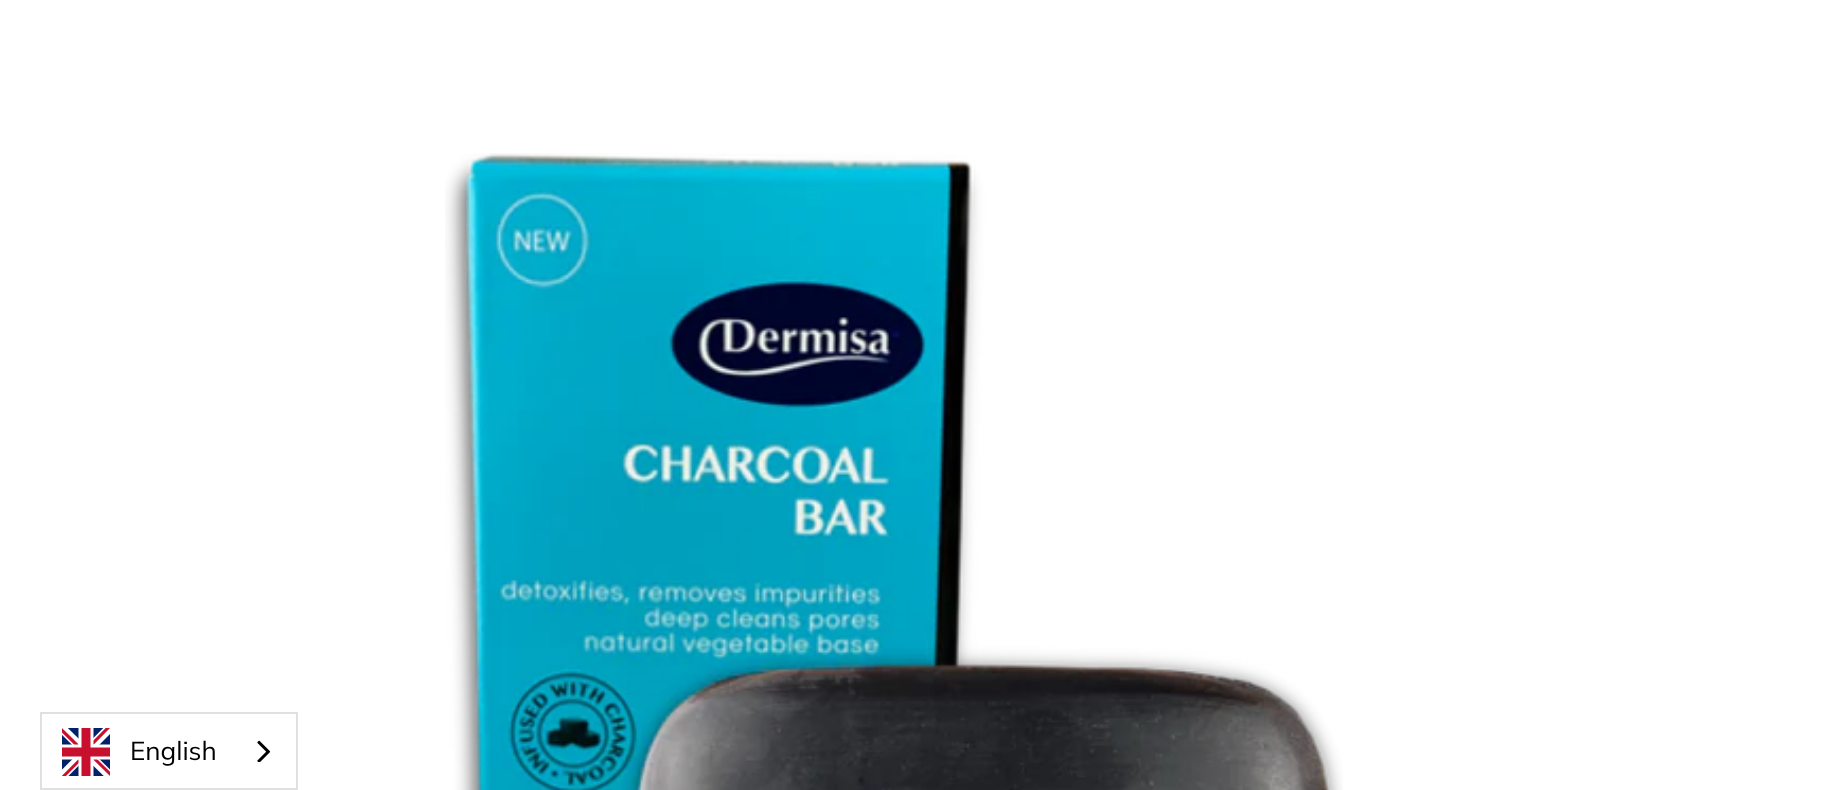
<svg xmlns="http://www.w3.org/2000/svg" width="1833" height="790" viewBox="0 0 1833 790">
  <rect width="100%" height="100%" fill="rgb(255,255,255)"/>
  <rect x="41" y="713" width="256" height="76" fill="none" stroke="rgb(224,224,224)" stroke-width="2"/>
  <image x="62" y="728" width="48" height="48" href="pic1.png"/>
  <text x="130" y="760" font-family="Muli" font-size="26" fill="rgb(0,0,0)">English</text>
  <image x="257" y="740" width="14" height="22" href="pic2.png"/>
  <image x="445" y="153" width="898" height="637" href="pic3.png"/>
</svg>
